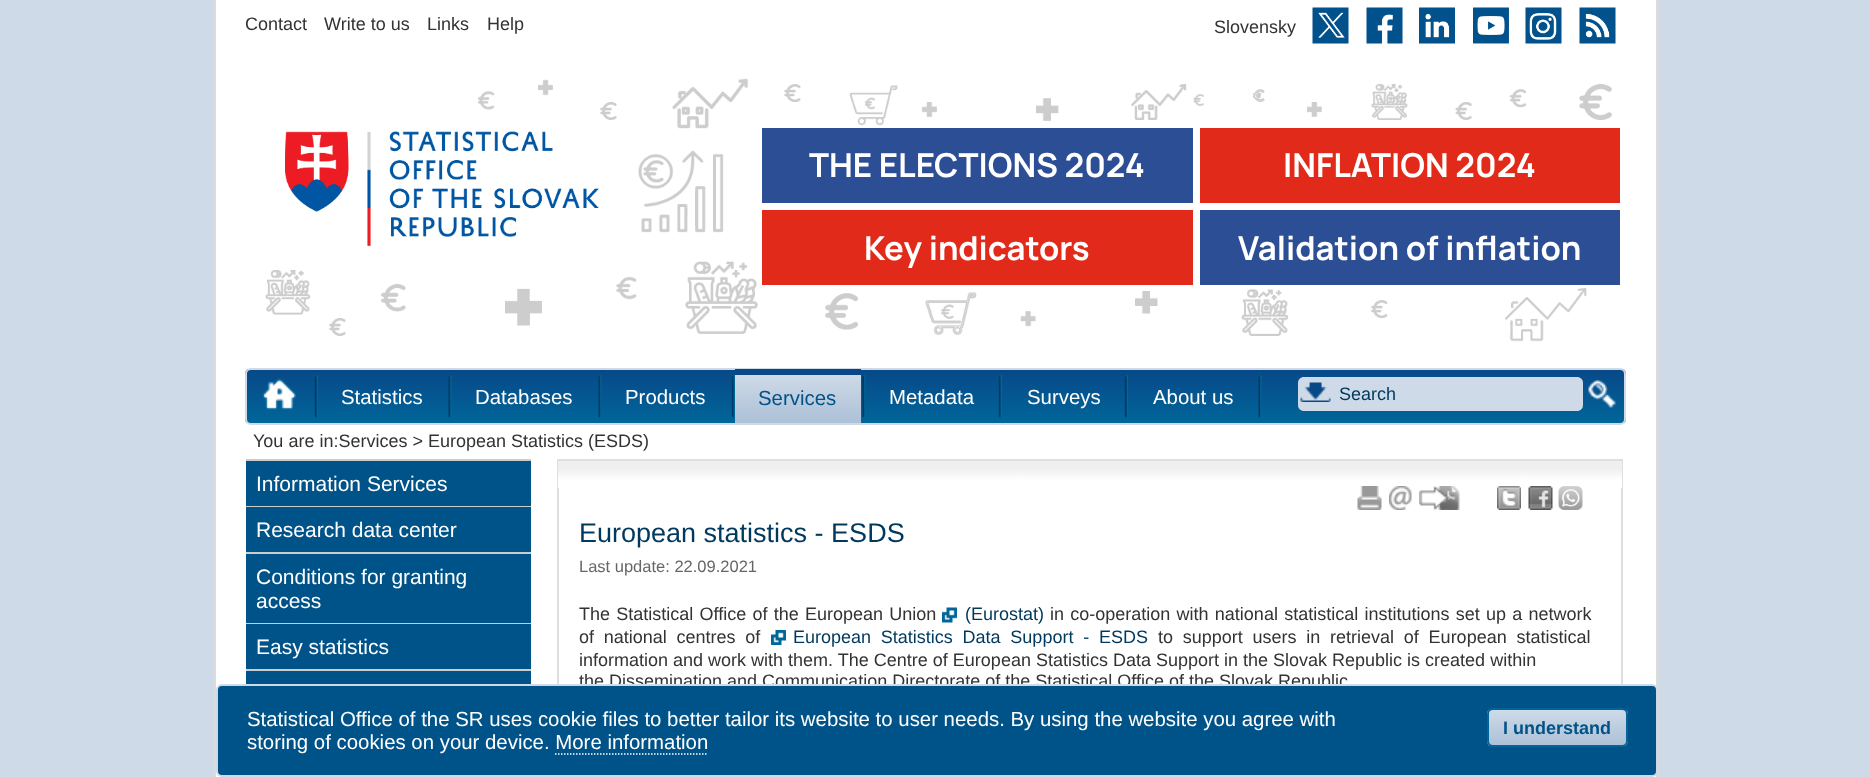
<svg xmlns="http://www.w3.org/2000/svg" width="1870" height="777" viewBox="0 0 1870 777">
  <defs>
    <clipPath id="clip1"><rect x="245" y="368" width="1381" height="57" rx="6"/></clipPath>
    <linearGradient id="g1" gradientUnits="userSpaceOnUse" x1="935" y1="369" x2="935" y2="423"><stop offset="0" stop-color="rgb(8,72,136)"/><stop offset="1" stop-color="rgb(0,102,153)"/></linearGradient>
    <linearGradient id="g2" gradientUnits="userSpaceOnUse" x1="798" y1="375" x2="798" y2="423"><stop offset="0" stop-color="rgb(206,218,231)"/><stop offset="1" stop-color="rgb(172,192,215)"/></linearGradient>
    <linearGradient id="g3" gradientUnits="userSpaceOnUse" x1="558" y1="461" x2="558" y2="488"><stop offset="0.3" stop-color="rgb(239,239,239)"/><stop offset="0.7" stop-color="rgb(255,255,255)"/></linearGradient>
    <clipPath id="clip2"><rect x="1487" y="708" width="141" height="39" rx="6"/></clipPath>
    <linearGradient id="g4" gradientUnits="userSpaceOnUse" x1="1557" y1="710" x2="1557" y2="746"><stop offset="0" stop-color="rgb(206,218,231)"/><stop offset="1" stop-color="rgb(172,192,215)"/></linearGradient>
  </defs>
  <rect width="100%" height="100%" fill="rgb(206,218,231)"/>
  <rect x="216" y="0" width="1440" height="777" fill="rgb(255,255,255)"/>
  <rect x="1656" y="0" width="3" height="777" fill="rgb(218,219,220)"/>
  <rect x="213" y="0" width="3" height="777" fill="rgb(218,219,220)"/>
  <g font-family="Liberation Sans" font-size="18" fill="rgb(51,51,51)">
    <text x="245" y="30">Contact</text>
    <text x="324" y="30">Write to us</text>
    <text x="427" y="30">Links</text>
    <text x="487" y="30">Help</text>
    <text x="1214" y="33">Slovensky</text>
  </g>
  <image x="1312" y="7" width="37" height="37" href="pic1.png"/>
  <image x="1366" y="7" width="37" height="37" href="pic2.png"/>
  <image x="1419" y="7" width="36" height="37" href="pic3.png"/>
  <image x="1473" y="7" width="36" height="37" href="pic4.png"/>
  <image x="1525" y="7" width="37" height="37" href="pic5.png"/>
  <image x="1579" y="7" width="37" height="37" href="pic6.png"/>
  <image x="265" y="78" width="1347" height="264" href="pic7.png"/>
  <image x="285" y="131" width="314" height="115" href="pic8.png"/>
  <rect x="762" y="128" width="431" height="75" fill="rgb(44,78,149)"/>
  <text x="809" y="177" font-family="Manrope" font-size="33" font-weight="200" fill="rgb(255,255,255)">THE ELECTIONS 2024</text>
  <rect x="1200" y="128" width="420" height="75" fill="rgb(225,42,25)"/>
  <text x="1283" y="177" font-family="Manrope" font-size="33" font-weight="200" fill="rgb(255,255,255)">INFLATION 2024</text>
  <rect x="762" y="210" width="431" height="75" fill="rgb(225,42,25)"/>
  <text x="864" y="260" font-family="Manrope" font-size="33" font-weight="200" fill="rgb(255,255,255)">Key indicators</text>
  <rect x="1200" y="210" width="420" height="75" fill="rgb(44,78,149)"/>
  <text x="1238" y="260" font-family="Manrope" font-size="33" font-weight="200" fill="rgb(255,255,255)">Validation of inflation</text>
  <g clip-path="url(#clip1)">
    <rect x="245" y="369" width="1381" height="54" fill="url(#g1)"/>
  </g>
  <rect x="246" y="369" width="1379" height="55" rx="5" fill="none" stroke="rgb(206,218,231)" stroke-width="2"/>
  <image x="262" y="378" width="35" height="32" href="pic9.png"/>
  <image x="314" y="375" width="4" height="43" href="pic10.png"/>
  <text x="341" y="404" font-family="Liberation Sans" font-size="20.4" fill="rgb(255,255,255)">Statistics</text>
  <image x="448" y="375" width="4" height="43" href="pic11.png"/>
  <text x="475" y="404" font-family="Liberation Sans" font-size="20.4" fill="rgb(255,255,255)">Databases</text>
  <image x="598" y="375" width="4" height="43" href="pic11.png"/>
  <text x="625" y="404" font-family="Liberation Sans" font-size="20.4" fill="rgb(255,255,255)">Products</text>
  <image x="731" y="375" width="4" height="43" href="pic12.png"/>
  <rect x="735" y="375" width="126" height="48" fill="url(#g2)"/>
  <rect x="735" y="369" width="126" height="6" fill="rgb(8,72,136)"/>
  <text x="758" y="405" font-family="Liberation Sans" font-size="20.4" fill="rgb(0,83,136)">Services</text>
  <image x="862" y="375" width="4" height="43" href="pic13.png"/>
  <text x="889" y="404" font-family="Liberation Sans" font-size="20.4" fill="rgb(255,255,255)">Metadata</text>
  <image x="998" y="375" width="4" height="43" href="pic10.png"/>
  <text x="1027" y="404" font-family="Liberation Sans" font-size="20.4" fill="rgb(255,255,255)">Surveys</text>
  <image x="1124" y="375" width="4" height="43" href="pic12.png"/>
  <text x="1153" y="404" font-family="Liberation Sans" font-size="20.4" fill="rgb(255,255,255)">About us</text>
  <image x="1258" y="375" width="4" height="43" href="pic11.png"/>
  <path d="M1304 377H1337V411H1304C1300.5 411 1298 408.5 1298 405V383C1298 379.5 1300.5 377 1304 377Z" fill="rgb(206,218,231)"/>
  <image x="1300" y="382" width="31" height="20" href="pic14.png"/>
  <path d="M1337 377H1577C1580.5 377 1583 379.5 1583 383V405C1583 408.5 1580.5 411 1577 411H1337Z" fill="rgb(206,218,231)"/>
  <text x="1339" y="400" font-family="Liberation Sans" font-size="18" fill="rgb(0,56,94)">Search</text>
  <image x="1588" y="380" width="28" height="28" href="pic15.png"/>
  <text x="253" y="447" font-family="Liberation Sans" font-size="18" fill="rgb(51,51,51)">You are in:Services &gt; European Statistics (ESDS)</text>
  <rect x="246" y="459" width="285" height="2" fill="rgb(204,204,204)"/>
  <rect x="246" y="461" width="285" height="45" fill="rgb(0,83,136)"/>
  <text x="256" y="491" font-family="Liberation Sans" font-size="21" fill="rgb(255,255,255)">Information Services</text>
  <rect x="246" y="506" width="285" height="1" fill="rgb(204,204,204)"/>
  <rect x="246" y="507" width="285" height="45" fill="rgb(0,83,136)"/>
  <text x="256" y="537" font-family="Liberation Sans" font-size="21" fill="rgb(255,255,255)">Research data center</text>
  <rect x="246" y="552" width="285" height="2" fill="rgb(204,204,204)"/>
  <rect x="246" y="554" width="285" height="69" fill="rgb(0,83,136)"/>
  <g font-family="Liberation Sans" font-size="21" fill="rgb(255,255,255)">
    <text>
      <tspan x="256" y="584">Conditions for granting</tspan>
      <tspan x="256" y="608">access</tspan>
    </text>
  </g>
  <rect x="246" y="623" width="285" height="1" fill="rgb(204,204,204)"/>
  <rect x="246" y="624" width="285" height="45" fill="rgb(0,83,136)"/>
  <text x="256" y="654" font-family="Liberation Sans" font-size="21" fill="rgb(255,255,255)">Easy statistics</text>
  <rect x="246" y="669" width="285" height="2" fill="rgb(204,204,204)"/>
  <rect x="246" y="671" width="285" height="13" fill="rgb(0,83,136)"/>
  <rect x="558" y="460" width="1064" height="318" fill="none" stroke="rgb(223,223,223)" stroke-width="2"/>
  <rect x="558" y="461" width="1064" height="27" fill="url(#g3)"/>
  <image x="1357" y="486" width="25" height="24" href="pic16.png"/>
  <image x="1389" y="486" width="23" height="24" href="pic17.png"/>
  <image x="1419" y="486" width="41" height="24" href="pic18.png"/>
  <image x="1497" y="486" width="24" height="24" href="pic19.png"/>
  <image x="1528" y="486" width="25" height="24" href="pic20.png"/>
  <image x="1558" y="486" width="25" height="24" href="pic21.png"/>
  <text x="579" y="542" font-family="Liberation Sans" font-size="27" fill="rgb(0,56,94)">European statistics - ESDS</text>
  <text x="579" y="572" font-family="Liberation Sans" font-size="16.5" fill="rgb(102,102,102)">Last update: 22.09.2021</text>
  <text x="579" y="620" word-spacing="1.25" font-family="Liberation Sans" font-size="18" fill="rgb(51,51,51)">The Statistical Office of the European Union</text>
  <image x="942" y="607" width="15" height="16" href="pic22.png"/>
  <text x="965" y="620" font-family="Liberation Sans" font-size="18" fill="rgb(0,56,94)">(Eurostat)</text>
  <g font-family="Liberation Sans" font-size="18" fill="rgb(51,51,51)">
    <text x="1050" y="620" word-spacing="1.25">in co-operation with national statistical institutions set up a network</text>
    <text x="579" y="643" word-spacing="4.75">of national centres of</text>
  </g>
  <image x="771" y="630" width="15" height="15" href="pic23.png"/>
  <text x="793" y="643" word-spacing="4.75" font-family="Liberation Sans" font-size="18" fill="rgb(0,56,94)">European Statistics Data Support - ESDS</text>
  <g font-family="Liberation Sans" font-size="18" fill="rgb(51,51,51)">
    <text x="1158" y="643" word-spacing="4.75">to support users in retrieval of European statistical</text>
    <text>
      <tspan x="579" y="666">information and work with them. The Centre of European Statistics Data Support in the Slovak Republic is created within</tspan>
      <tspan x="579" y="687">the Dissemination and Communication Directorate of the Statistical Office of the Slovak Republic</tspan>
    </text>
  </g>
  <rect x="217" y="685" width="1440" height="91" rx="5" fill="rgb(0,83,136)" stroke="rgb(206,218,231)" stroke-width="2"/>
  <g font-family="Liberation Sans" font-size="20.4" fill="rgb(255,255,255)">
    <text>
      <tspan x="247" y="726">Statistical Office of the SR uses cookie files to better tailor its website to user needs. By using the website you agree with</tspan>
      <tspan x="247" y="749">storing of cookies on your device. More information</tspan>
    </text>
  </g>
  <path d="M555 754H708" fill="none" stroke="rgb(255,255,255)" stroke-width="1.5" stroke-dasharray="1.5 1.5"/>
  <g clip-path="url(#clip2)">
    <rect x="1487" y="710" width="141" height="36" fill="url(#g4)"/>
  </g>
  <rect x="1488" y="709" width="139" height="37" rx="5" fill="none" stroke="rgb(0,102,153)" stroke-width="2"/>
  <text x="1503" y="734" font-family="Liberation Sans" font-size="18" font-weight="bold" fill="rgb(0,83,136)">I understand</text>
</svg>
